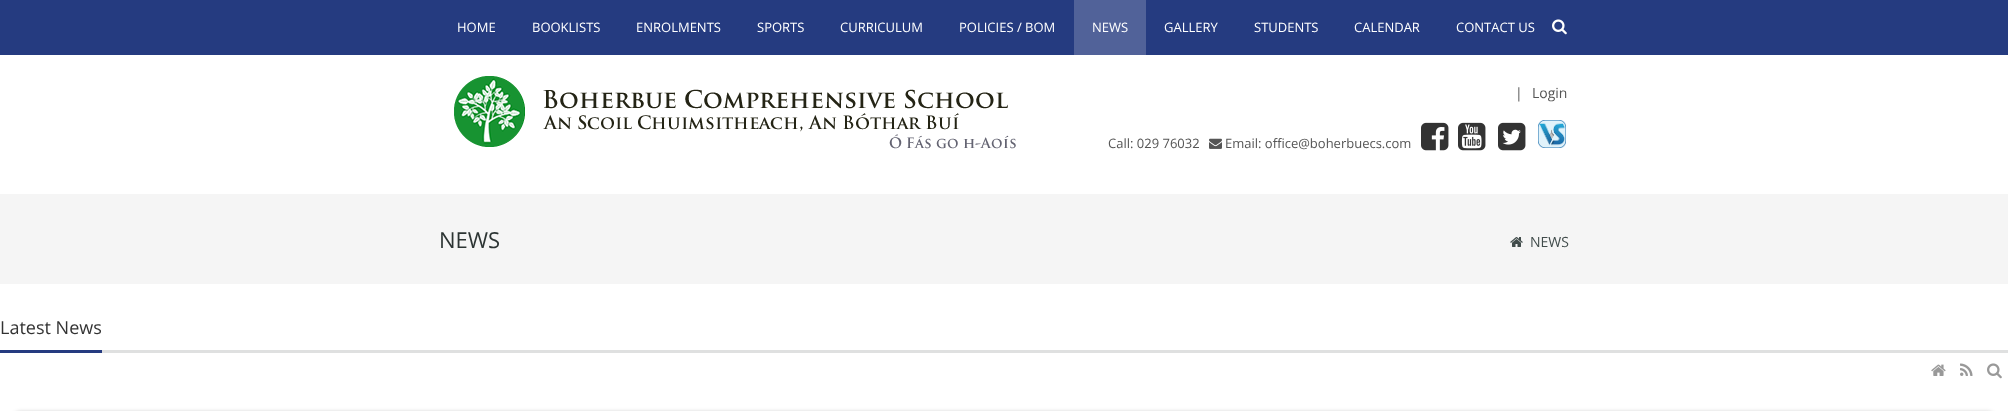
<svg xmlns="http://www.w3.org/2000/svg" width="2008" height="411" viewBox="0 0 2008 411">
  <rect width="100%" height="100%" fill="rgb(255,255,255)"/>
  <rect x="0" y="0" width="2008" height="55" fill="rgb(37,59,128)"/>
  <g font-family="Open Sans" font-size="13" fill="rgb(255,255,255)">
    <text x="457" y="32">HOME</text>
    <text x="532" y="32">BOOKLISTS</text>
    <text x="636" y="32">ENROLMENTS</text>
    <text x="757" y="32">SPORTS</text>
    <text x="840" y="32">CURRICULUM</text>
    <text x="959" y="32">POLICIES / BOM</text>
  </g>
  <rect x="1074" y="0" width="72" height="55" fill="rgb(81,98,153)"/>
  <g font-family="Open Sans" font-size="13" fill="rgb(255,255,255)">
    <text x="1092" y="32">NEWS</text>
    <text x="1164" y="32">GALLERY</text>
    <text x="1254" y="32">STUDENTS</text>
    <text x="1354" y="32">CALENDAR</text>
    <text x="1456" y="32">CONTACT US</text>
  </g>
  <image x="1552" y="19" width="15" height="16" href="pic1.png"/>
  <image x="454" y="76" width="562" height="73" href="pic2.png"/>
  <g font-family="Open Sans" font-size="14" fill="rgb(85,85,85)">
    <text x="1515" y="98">|</text>
    <text x="1532" y="98">Login</text>
  </g>
  <text x="1108" y="148" font-family="Open Sans" font-size="13" fill="rgb(85,85,85)">Call: 029 76032</text>
  <image x="1209" y="138" width="13" height="11" href="pic3.png"/>
  <text x="1225" y="148" font-family="Open Sans" font-size="13" fill="rgb(85,85,85)">Email: office@boherbuecs.com</text>
  <image x="1421" y="122" width="28" height="29" href="pic4.png"/>
  <image x="1458" y="122" width="28" height="29" href="pic5.png"/>
  <image x="1498" y="122" width="28" height="29" href="pic6.png"/>
  <image x="1538" y="120" width="28" height="28" href="pic7.png"/>
  <rect x="0" y="194" width="2008" height="90" fill="rgb(245,245,245)"/>
  <text x="439" y="248" font-family="Open Sans" font-size="22" fill="rgb(44,52,51)">NEWS</text>
  <image x="1510" y="237" width="13" height="10" href="pic8.png"/>
  <text x="1530" y="247" font-family="Open Sans" font-size="14" fill="rgb(65,76,75)">NEWS</text>
  <rect x="102" y="350" width="1906" height="3" fill="rgb(223,224,224)"/>
  <rect x="0" y="350" width="102" height="3" fill="rgb(37,59,128)"/>
  <text x="0" y="334" font-family="Open Sans" font-size="18" fill="rgb(51,51,51)">Latest News</text>
  <image x="1931" y="364" width="15" height="12" href="pic9.png"/>
  <image x="1960" y="363" width="13" height="13" href="pic10.png"/>
  <image x="1987" y="363" width="15" height="16" href="pic11.png"/>
  <rect x="14" y="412" width="1980" height="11" rx="6" fill="rgba(0,0,0,0.25)" filter="blur(2px)"/>
</svg>
